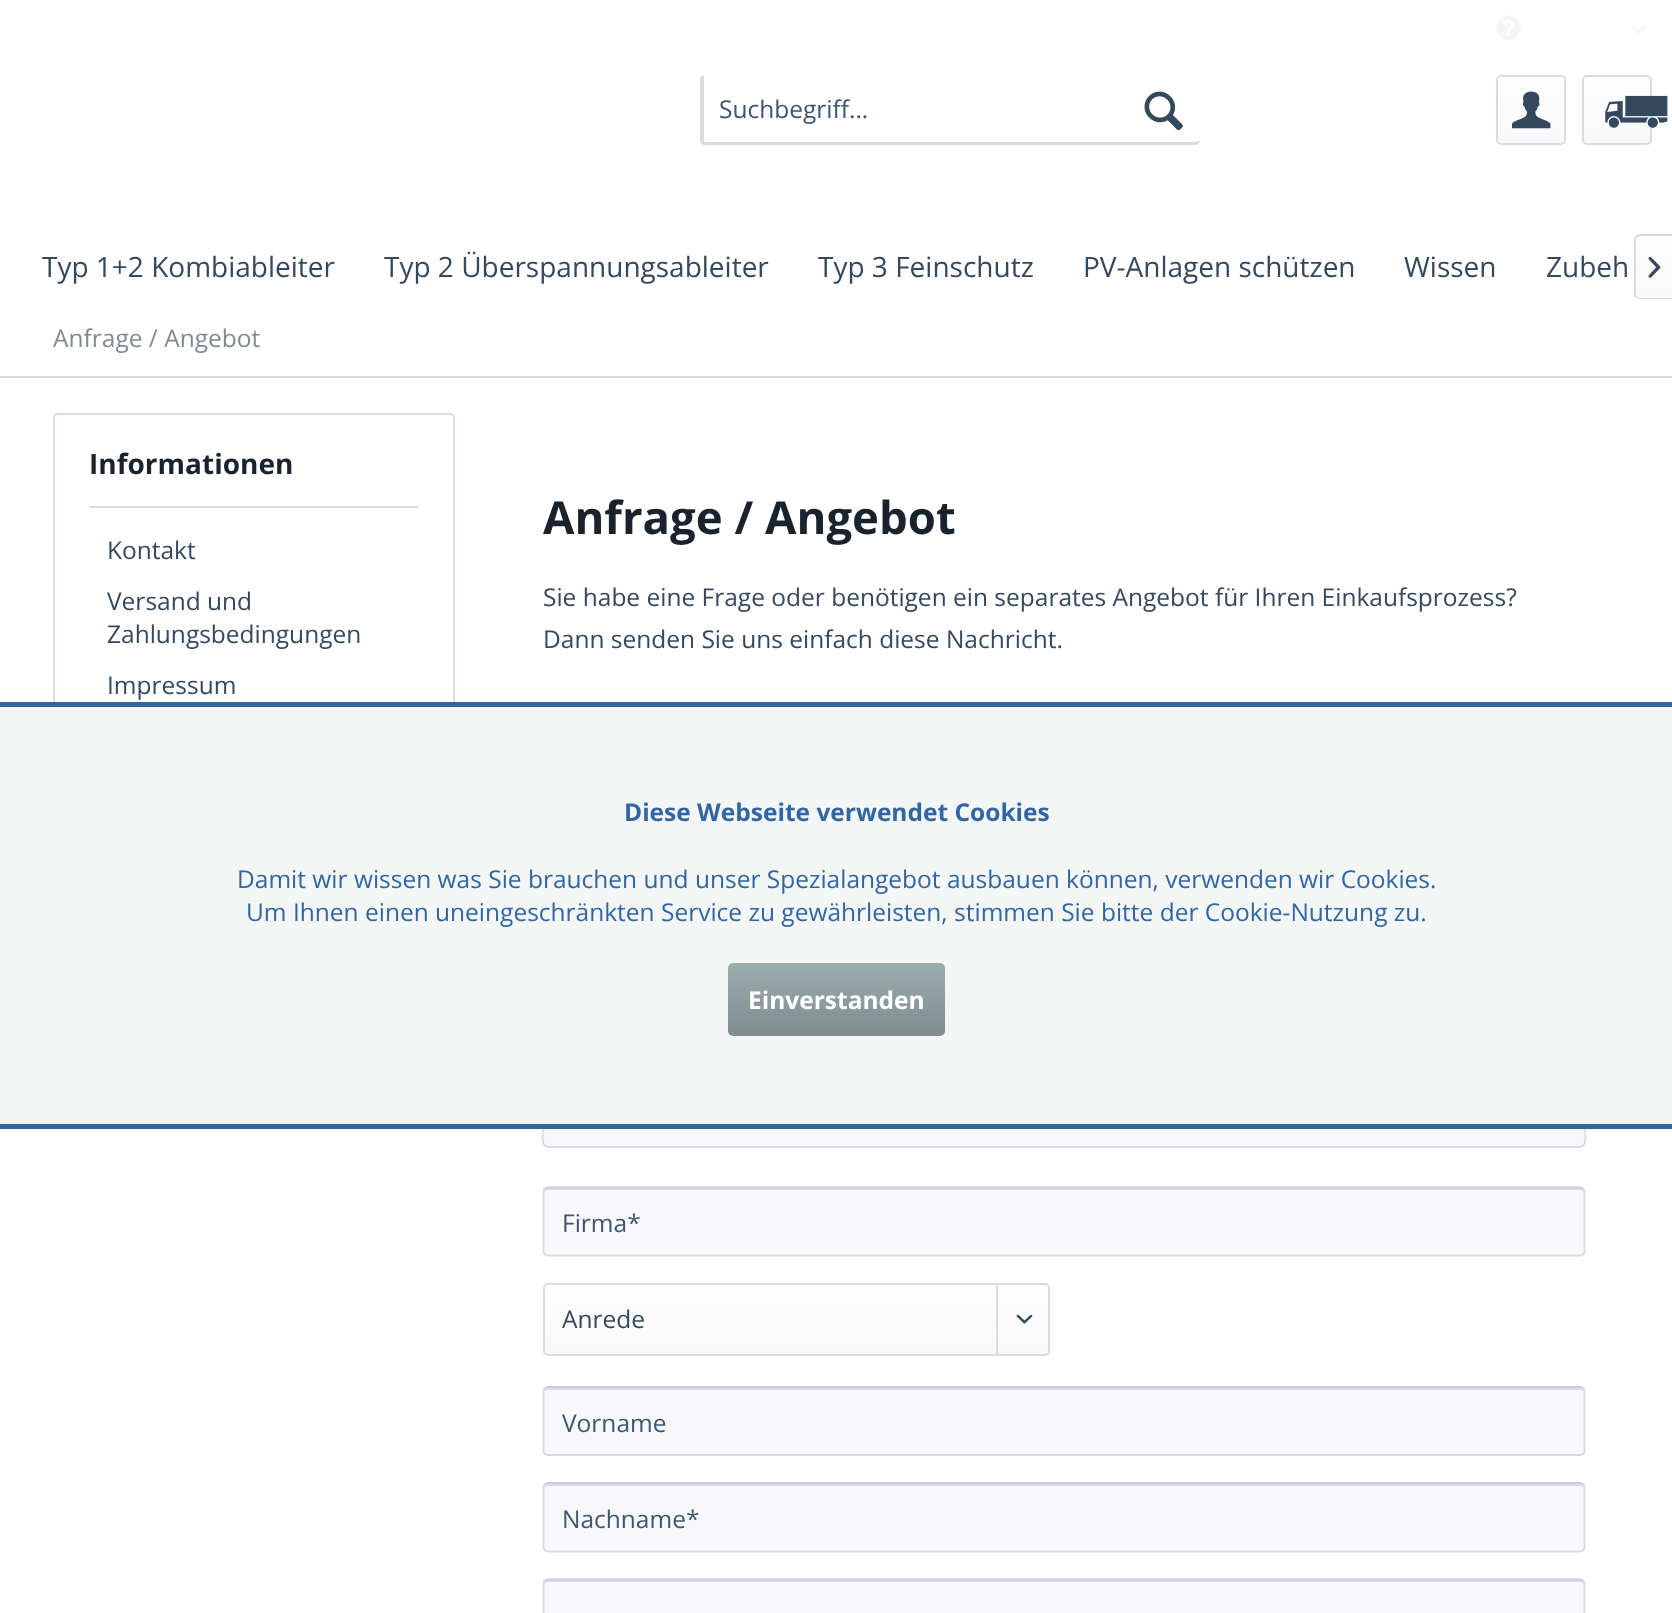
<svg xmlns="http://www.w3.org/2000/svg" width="1672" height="1613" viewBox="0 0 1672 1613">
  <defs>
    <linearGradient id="g1" gradientUnits="userSpaceOnUse" x1="1531" y1="77" x2="1531" y2="144"><stop offset="0" stop-color="rgb(255,255,255)"/><stop offset="1" stop-color="rgb(248,248,250)"/></linearGradient>
    <linearGradient id="g2" gradientUnits="userSpaceOnUse" x1="1617" y1="77" x2="1617" y2="144"><stop offset="0" stop-color="rgb(255,255,255)"/><stop offset="1" stop-color="rgb(248,248,250)"/></linearGradient>
    <linearGradient id="g3" gradientUnits="userSpaceOnUse" x1="1655" y1="236" x2="1655" y2="298"><stop offset="0" stop-color="rgb(255,255,255)"/><stop offset="1" stop-color="rgb(248,248,250)"/></linearGradient>
    <linearGradient id="g4" gradientUnits="userSpaceOnUse" x1="796" y1="1285" x2="796" y2="1355"><stop offset="0" stop-color="rgb(255,255,255)"/><stop offset="1" stop-color="rgb(248,248,250)"/></linearGradient>
    <linearGradient id="g5" gradientUnits="userSpaceOnUse" x1="837" y1="963" x2="837" y2="1036"><stop offset="0" stop-color="rgb(155,173,174)"/><stop offset="1" stop-color="rgb(127,140,141)"/></linearGradient>
  </defs>
  <rect width="100%" height="100%" fill="rgb(255,255,255)"/>
  <image x="1496" y="15" width="25" height="25" href="pic1.png"/>
  <image x="1631" y="25" width="15" height="9" href="pic2.png"/>
  <path d="M705 75H1195C1198 75 1200 78 1200 80V140C1200 143 1198 145 1195 145H705C702 145 700 143 700 140V80C700 78 702 75 705 75ZM705 75H1195C1198 75 1200 78 1200 80V140C1200 141 1198 142 1195 142H705C704 142 704 141 704 140V80C704 78 704 75 705 75Z" fill="rgb(218,218,229)" fill-rule="evenodd"/>
  <text x="719" y="118" font-family="Open Sans" font-size="24.5" fill="rgb(61,86,110)">Suchbegriff...</text>
  <image x="1144" y="91" width="39" height="40" href="pic3.png"/>
  <rect x="1498" y="77" width="67" height="67" rx="4" fill="url(#g1)"/>
  <rect x="1497" y="76" width="68" height="68" rx="4" fill="none" stroke="rgb(218,218,229)" stroke-width="2"/>
  <image x="1512" y="91" width="39" height="38" href="pic4.png"/>
  <rect x="1584" y="77" width="66" height="67" rx="4" fill="url(#g2)"/>
  <rect x="1583" y="76" width="68" height="68" rx="4" fill="none" stroke="rgb(218,218,229)" stroke-width="2"/>
  <image x="1605" y="95" width="63" height="33" href="pic5.png"/>
  <g font-family="Open Sans" font-size="28" fill="rgb(52,73,94)">
    <text x="42" y="277">Typ 1+2 Kombiableiter</text>
    <text x="384" y="277">Typ 2 Überspannungsableiter</text>
    <text x="818" y="277">Typ 3 Feinschutz</text>
    <text x="1083" y="277">PV-Anlagen schützen</text>
    <text x="1404" y="277">Wissen</text>
    <text x="1546" y="277">Zubeh</text>
  </g>
  <path d="M1640 236H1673V298H1640C1638 298 1636 296 1636 294V240C1636 238 1638 236 1640 236Z" fill="url(#g3)"/>
  <path d="M1640 234H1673V299H1640C1637 299 1634 297 1634 294V240C1634 237 1637 234 1640 234ZM1640 236H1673V298H1640C1638 298 1636 296 1636 294V240C1636 238 1638 236 1640 236Z" fill="rgb(218,218,229)" fill-rule="evenodd"/>
  <image x="1648" y="256" width="13" height="22" href="pic6.png"/>
  <rect x="0" y="376" width="1672" height="2" fill="rgb(218,218,229)"/>
  <text x="53" y="347" font-family="Open Sans" font-size="24.5" fill="rgb(127,140,141)">Anfrage / Angebot</text>
  <rect x="54" y="414" width="400" height="324" rx="4" fill="none" stroke="rgb(218,218,229)" stroke-width="2"/>
  <rect x="89" y="506" width="329" height="2" fill="rgb(218,218,229)"/>
  <text x="89" y="474" font-family="Open Sans" font-size="28" font-weight="bold" fill="rgb(25,35,45)">Informationen</text>
  <g font-family="Open Sans" font-size="24.5" fill="rgb(52,73,94)">
    <text x="107" y="559">Kontakt</text>
    <text>
      <tspan x="107" y="610">Versand und</tspan>
      <tspan x="107" y="643">Zahlungsbedingungen</tspan>
    </text>
    <text x="107" y="694">Impressum</text>
  </g>
  <text x="543" y="534" font-family="Open Sans" font-size="45.5" font-weight="bold" fill="rgb(25,35,45)">Anfrage / Angebot</text>
  <g font-family="Open Sans" font-size="24.5" fill="rgb(52,73,94)">
    <text>
      <tspan x="543" y="606">Sie habe eine Frage oder benötigen ein separates Angebot für Ihren Einkaufsprozess?</tspan>
      <tspan x="543" y="648">Dann senden Sie uns einfach diese Nachricht.</tspan>
    </text>
  </g>
  <rect x="543" y="1045" width="1043" height="103" rx="5" fill="rgb(248,248,250)"/>
  <path d="M1583.5 1047L1584.5 1050V1127.5C1584.5 1127.5 1588.5 1147 1580 1147H548C539.5 1147 543.5 1127.5 543.5 1127.5V1050L544.5 1047" fill="none" stroke="rgb(218,218,229)" stroke-width="1.8"/>
  <rect x="543" y="1187" width="1043" height="70" rx="5" fill="rgb(248,248,250)"/>
  <path d="M548 1190H1580C1582 1190 1584 1192 1584 1194V1192C1584 1190 1582 1188 1580 1188H548C546 1188 544 1190 544 1192V1194C544 1192 546 1190 548 1190Z" fill="rgb(218,218,229)"/>
  <path d="M544.5 1188.5L548 1187.5H1580L1583.5 1188.5" fill="none" stroke="rgb(203,203,219)" stroke-width="1.8"/>
  <path d="M1583.5 1188.5C1584 1189.5 1584.5 1190.5 1584.5 1192V1251C1584.5 1252.5 1584 1253.5 1583.5 1254.5C1582.5 1255 1581.5 1255.5 1580 1255.5H548C546.5 1255.5 545.5 1255 544.5 1254.5C544 1253.5 543.5 1252.5 543.5 1251V1192C543.5 1190.5 544 1189.5 544.5 1188.5" fill="none" stroke="rgb(218,218,229)" stroke-width="1.8"/>
  <text x="562" y="1232" font-family="Open Sans" font-size="24.5" fill="rgb(61,86,110)">Firma*</text>
  <rect x="544" y="1285" width="504" height="70" rx="4" fill="url(#g4)"/>
  <rect x="544" y="1284" width="505" height="71" rx="4" fill="none" stroke="rgb(218,218,229)" stroke-width="2"/>
  <text x="562" y="1328" font-family="Open Sans" font-size="24.5" fill="rgb(52,73,94)">Anrede</text>
  <rect x="996" y="1285" width="2" height="70" fill="rgb(218,218,229)"/>
  <image x="1016" y="1314" width="17" height="10" href="pic7.png"/>
  <rect x="543" y="1386" width="1043" height="70" rx="5" fill="rgb(248,248,250)"/>
  <path d="M548 1390H1580C1582 1390 1584 1391 1584 1393C1584 1390 1583 1388 1580 1388H548C545 1388 544 1390 544 1393C544 1391 546 1390 548 1390Z" fill="rgb(218,218,229)"/>
  <path d="M544.5 1388L548 1387H1580L1583.5 1388" fill="none" stroke="rgb(203,203,219)" stroke-width="1.8"/>
  <path d="M1583.5 1388C1584 1389 1584.5 1390 1584.5 1391V1451C1584.5 1452 1584 1453 1583.5 1454C1582.5 1454.5 1581.5 1455 1580 1455H548C546.5 1455 545.5 1454.5 544.5 1454C544 1453 543.5 1452 543.5 1451V1391C543.5 1390 544 1389 544.5 1388" fill="none" stroke="rgb(218,218,229)" stroke-width="1.8"/>
  <text x="562" y="1432" font-family="Open Sans" font-size="24.5" fill="rgb(61,86,110)">Vorname</text>
  <rect x="543" y="1482" width="1043" height="70" rx="5" fill="rgb(248,248,250)"/>
  <path d="M548 1486H1580C1582 1486 1584 1487 1584 1489C1584 1486 1583 1484 1580 1484H548C545 1484 544 1486 544 1489C544 1487 546 1486 548 1486Z" fill="rgb(218,218,229)"/>
  <path d="M544.5 1484.5L548 1483H1580L1583.5 1484.5" fill="none" stroke="rgb(203,203,219)" stroke-width="1.8"/>
  <path d="M1583.5 1484.5C1584 1485 1584.5 1486.5 1584.5 1487.5V1547C1584.5 1548 1584 1549.5 1583.5 1550C1582.5 1551 1581.5 1551.5 1580 1551.5H548C546.5 1551.5 545.5 1551 544.5 1550C544 1549.5 543.5 1548 543.5 1547V1487.5C543.5 1486.5 544 1485 544.5 1484.5" fill="none" stroke="rgb(218,218,229)" stroke-width="1.8"/>
  <text x="562" y="1528" font-family="Open Sans" font-size="24.5" fill="rgb(61,86,110)">Nachname*</text>
  <rect x="543" y="1579" width="1043" height="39" rx="5" fill="rgb(248,248,250)"/>
  <path d="M548 1582H1580C1582 1582 1584 1584 1584 1586V1584C1584 1582 1582 1580 1580 1580H548C546 1580 544 1582 544 1584V1586C544 1584 546 1582 548 1582Z" fill="rgb(218,218,229)"/>
  <path d="M544.5 1580.5L548 1579.5H1580L1583.5 1580.5" fill="none" stroke="rgb(203,203,219)" stroke-width="1.8"/>
  <path d="M1583.5 1580.5C1584 1581.5 1584.5 1582.5 1584.5 1584V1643C1584.5 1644.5 1584 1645.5 1583.5 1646.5C1582.5 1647 1581.5 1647.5 1580 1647.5H548C546.5 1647.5 545.5 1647 544.5 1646.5C544 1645.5 543.5 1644.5 543.5 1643V1584C543.5 1582.5 544 1581.5 544.5 1580.5" fill="none" stroke="rgb(218,218,229)" stroke-width="1.8"/>
  <rect x="0" y="707" width="1672" height="417" fill="rgb(243,246,245)"/>
  <rect x="0" y="702" width="1672" height="5" fill="rgb(49,102,163)"/>
  <rect x="0" y="1124" width="1672" height="5" fill="rgb(49,102,163)"/>
  <text x="624" y="821" font-family="Open Sans" font-size="24.5" font-weight="bold" fill="rgb(49,102,163)">Diese Webseite verwendet Cookies</text>
  <g font-family="Open Sans" font-size="24.5" fill="rgb(49,102,163)">
    <text x="237" y="888">Damit wir wissen was Sie brauchen und unser Spezialangebot ausbauen können, verwenden wir Cookies.</text>
    <text x="246" y="921">Um Ihnen einen uneingeschränkten Service zu gewährleisten, stimmen Sie bitte der Cookie-Nutzung zu.</text>
  </g>
  <rect x="728" y="963" width="217" height="73" rx="5" fill="url(#g5)"/>
  <text x="748" y="1009" font-family="Open Sans" font-size="24.5" font-weight="bold" fill="rgb(255,255,255)">Einverstanden</text>
</svg>
